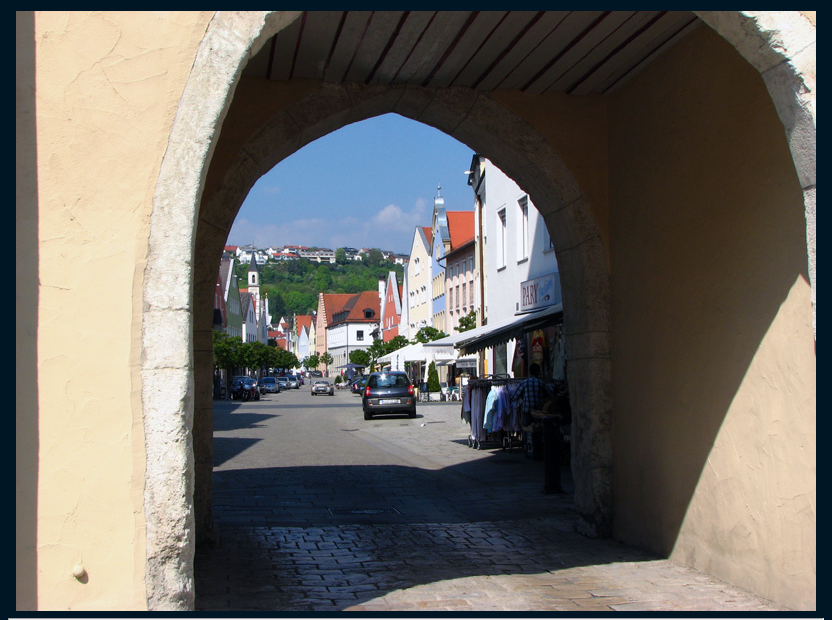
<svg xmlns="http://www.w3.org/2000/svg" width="832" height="620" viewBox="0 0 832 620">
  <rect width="100%" height="100%" fill="rgb(0,22,36)"/>
  <image x="16" y="11" width="800" height="600" href="pic1.png"/>
  <rect x="8" y="618" width="816" height="1" fill="rgb(159,159,159)"/>
  <rect x="823" y="618" width="1" height="2" fill="rgb(238,238,238)"/>
  <rect x="8" y="619" width="816" height="1" fill="rgb(238,238,238)"/>
  <rect x="8" y="618" width="1" height="2" fill="rgb(159,159,159)"/>
</svg>
